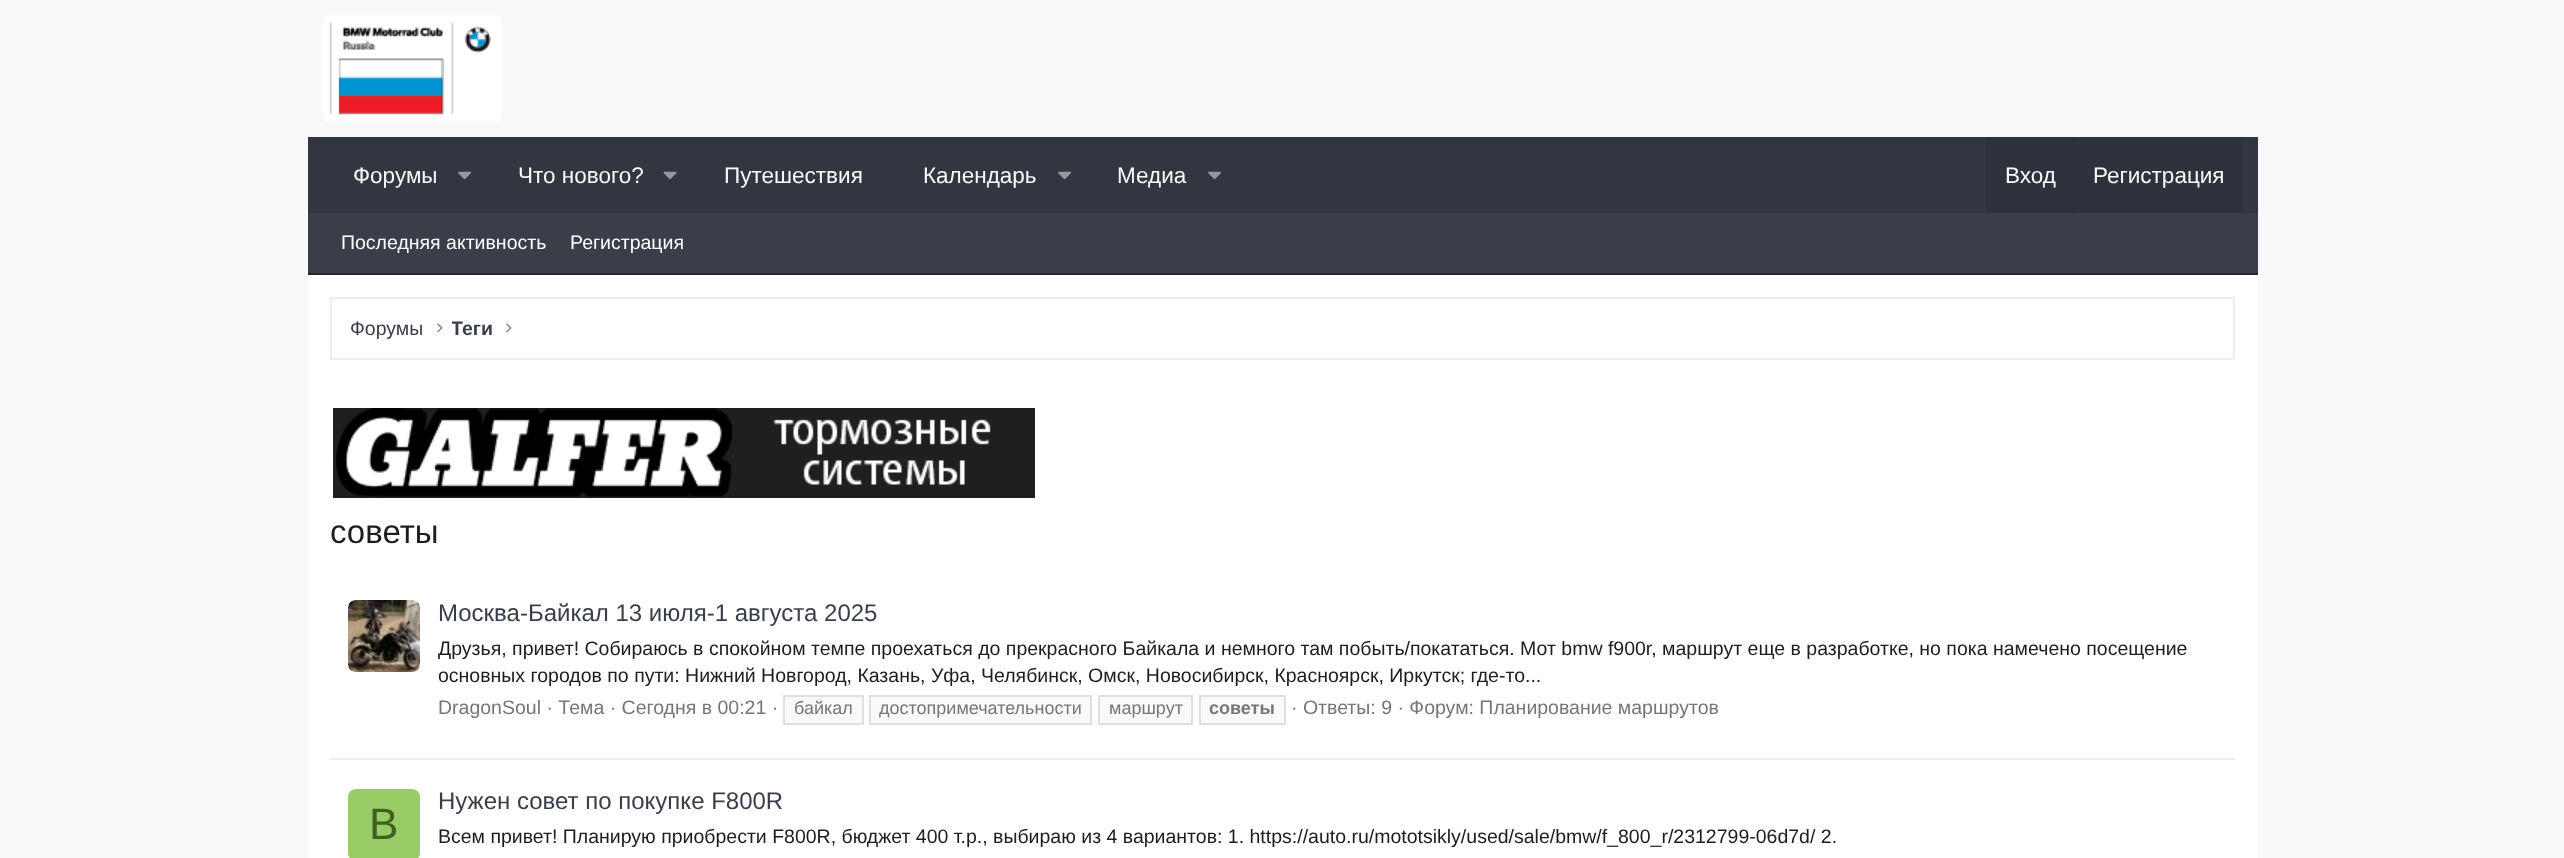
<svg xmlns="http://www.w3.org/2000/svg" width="2564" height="858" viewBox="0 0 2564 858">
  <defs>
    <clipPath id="clip1"><rect x="452" y="314" width="40" height="30"/></clipPath>
  </defs>
  <rect width="100%" height="100%" fill="rgb(249,249,249)"/>
  <image x="323" y="15" width="178" height="106" href="pic1.png"/>
  <rect x="308" y="137" width="1950" height="76" fill="rgb(49,54,65)"/>
  <text x="353" y="183" font-family="Liberation Sans" font-size="22.5" fill="rgb(249,249,249)">Форумы</text>
  <image x="458" y="171" width="13" height="9" href="pic2.png"/>
  <text x="518" y="183" font-family="Liberation Sans" font-size="22.5" fill="rgb(249,249,249)">Что нового?</text>
  <image x="663" y="171" width="14" height="9" href="pic3.png"/>
  <g font-family="Liberation Sans" font-size="22.5" fill="rgb(249,249,249)">
    <text x="724" y="183">Путешествия</text>
    <text x="923" y="183">Календарь</text>
  </g>
  <image x="1058" y="171" width="13" height="9" href="pic2.png"/>
  <text x="1117" y="183" font-family="Liberation Sans" font-size="22.5" fill="rgb(249,249,249)">Медиа</text>
  <image x="1208" y="171" width="13" height="9" href="pic2.png"/>
  <rect x="1986" y="137" width="257" height="76" fill="rgb(46,50,60)"/>
  <text x="2005" y="183" font-family="Liberation Sans" font-size="22.5" fill="rgb(249,249,249)">Вход</text>
  <rect x="2073" y="137" width="2" height="76" fill="rgb(43,47,55)"/>
  <text x="2093" y="183" font-family="Liberation Sans" font-size="22.5" fill="rgb(249,249,249)">Регистрация</text>
  <rect x="308" y="213" width="1950" height="60" fill="rgb(57,62,73)"/>
  <rect x="308" y="273" width="1950" height="2" fill="rgb(35,38,44)"/>
  <g font-family="Liberation Sans" font-size="19.5" fill="rgb(255,255,255)">
    <text x="341" y="249">Последняя активность</text>
    <text x="570" y="249">Регистрация</text>
  </g>
  <rect x="308" y="275" width="1950" height="583" fill="rgb(255,255,255)"/>
  <rect x="331" y="298" width="1903" height="61" fill="none" stroke="rgb(238,238,238)" stroke-width="2"/>
  <text x="350" y="335" font-family="Liberation Sans" font-size="19.5" fill="rgb(57,62,73)">Форумы</text>
  <image x="437" y="323" width="6" height="10" href="pic4.png"/>
  <g clip-path="url(#clip1)">
    <text x="451" y="335" font-family="Liberation Sans" font-size="19.5" font-weight="bold" fill="rgb(57,62,73)">Теги</text>
  </g>
  <image x="506" y="323" width="6" height="10" href="pic4.png"/>
  <image x="333" y="408" width="702" height="90" href="pic5.png"/>
  <text x="330" y="543" font-family="Liberation Sans" font-size="33" fill="rgb(29,29,29)">советы</text>
  <image x="348" y="600" width="72" height="72" href="pic6.png"/>
  <text x="438" y="621" font-family="Liberation Sans" font-size="24" fill="rgb(57,62,73)">Москва-Байкал 13 июля-1 августа 2025</text>
  <g font-family="Liberation Sans" font-size="19.5" fill="rgb(29,29,29)">
    <text>
      <tspan x="438" y="655">Друзья, привет! Собираюсь в спокойном темпе проехаться до прекрасного Байкала и немного там побыть/покататься. Мот bmw f900r, маршрут еще в разработке, но пока намечено посещение</tspan>
      <tspan x="438" y="682">основных городов по пути: Нижний Новгород, Казань, Уфа, Челябинск, Омск, Новосибирск, Красноярск, Иркутск; где-то...</tspan>
    </text>
  </g>
  <text x="438" y="714" font-family="Liberation Sans" font-size="19.5" fill="rgb(118,118,118)">DragonSoul · Тема · Сегодня в 00:21 ·</text>
  <rect x="784" y="696" width="79" height="28" fill="rgb(249,249,249)" stroke="rgb(223,223,223)" stroke-width="2"/>
  <text x="794" y="714" font-family="Liberation Sans" font-size="18" fill="rgb(118,118,118)">байкал</text>
  <rect x="870" y="696" width="221" height="28" fill="rgb(249,249,249)" stroke="rgb(223,223,223)" stroke-width="2"/>
  <text x="879" y="714" font-family="Liberation Sans" font-size="18" fill="rgb(118,118,118)">достопримечательности</text>
  <rect x="1099" y="696" width="93" height="28" fill="rgb(249,249,249)" stroke="rgb(223,223,223)" stroke-width="2"/>
  <text x="1109" y="714" font-family="Liberation Sans" font-size="18" fill="rgb(118,118,118)">маршрут</text>
  <rect x="1200" y="696" width="85" height="28" fill="rgb(249,249,249)" stroke="rgb(223,223,223)" stroke-width="2"/>
  <text x="1209" y="714" font-family="Liberation Sans" font-size="18" font-weight="bold" fill="rgb(118,118,118)">советы</text>
  <text x="1291" y="714" font-family="Liberation Sans" font-size="19.5" fill="rgb(118,118,118)">· Ответы: 9 · Форум: Планирование маршрутов</text>
  <rect x="330" y="758" width="1905" height="2" fill="rgb(238,238,238)"/>
  <rect x="348" y="789" width="72" height="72" rx="8" fill="rgb(153,204,102)"/>
  <text x="369" y="839" font-family="Liberation Sans" font-size="44" fill="rgb(64,96,32)">В</text>
  <text x="438" y="809" font-family="Liberation Sans" font-size="24" fill="rgb(57,62,73)">Нужен совет по покупке F800R</text>
  <text x="438" y="843" font-family="Liberation Sans" font-size="19.5" fill="rgb(29,29,29)">Всем привет! Планирую приобрести F800R, бюджет 400 т.р., выбираю из 4 вариантов: 1. https://auto.ru/mototsikly/used/sale/bmw/f_800_r/2312799-06d7d/ 2.</text>
</svg>
